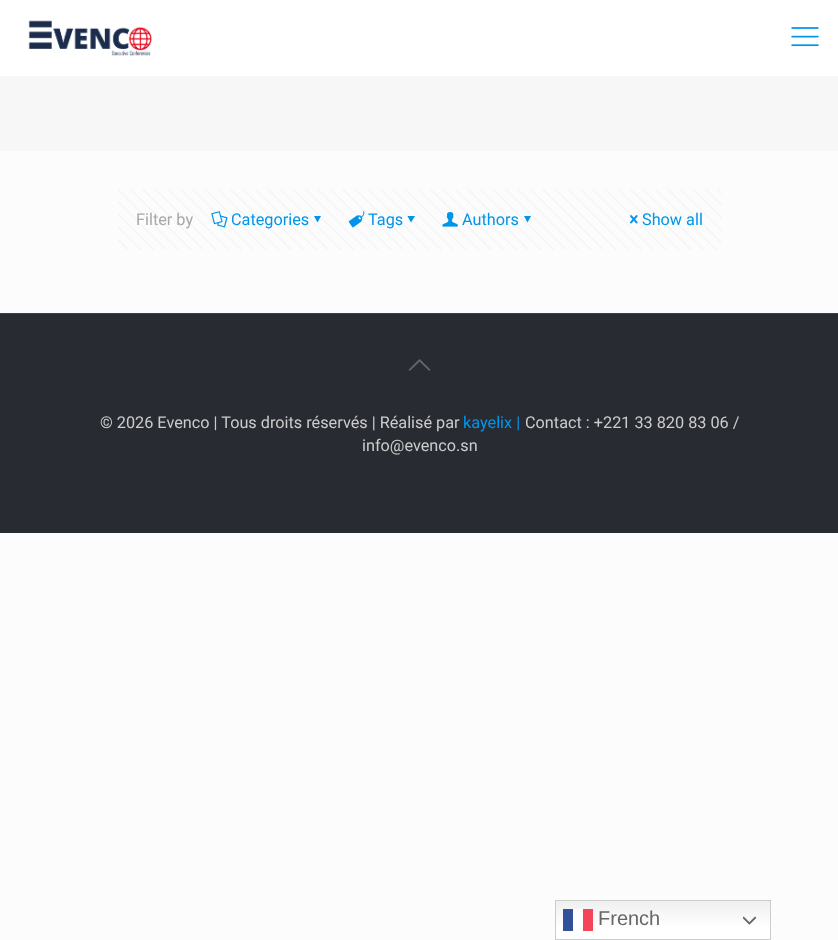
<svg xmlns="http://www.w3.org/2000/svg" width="838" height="940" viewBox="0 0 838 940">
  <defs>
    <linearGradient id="g1" gradientUnits="userSpaceOnUse" x1="663" y1="900" x2="663" y2="940"><stop offset="0" stop-color="rgb(239,239,239)"/><stop offset="0.7" stop-color="rgb(255,255,255)"/></linearGradient>
    <linearGradient id="g2" gradientUnits="userSpaceOnUse" x1="663" y1="900" x2="663" y2="940"><stop offset="0" stop-color="rgb(252,252,252)"/><stop offset="0.7" stop-color="rgb(255,255,255)"/></linearGradient>
  </defs>
  <rect width="100%" height="100%" fill="rgb(252,252,252)"/>
  <rect x="0" y="0" width="838" height="76" fill="rgb(255,255,255)"/>
  <image x="28" y="20" width="124" height="36" href="pic1.png"/>
  <image x="791" y="27" width="28" height="20" href="pic2.png"/>
  <rect x="0" y="76" width="838" height="75" fill="rgb(247,247,247)"/>
  <image x="118" y="189" width="604" height="61" href="pic3.png"/>
  <text x="136" y="225" font-family="Roboto" font-size="16.25" fill="rgb(168,168,168)">Filter by</text>
  <image x="211" y="211" width="17" height="17" href="pic4.png"/>
  <text x="231" y="225" font-family="Roboto" font-size="16.25" fill="rgb(0,149,235)">Categories</text>
  <path d="M321 216L317.5 222.5L314 216Z" fill="rgb(0,149,235)"/>
  <image x="348" y="211" width="17" height="17" href="pic5.png"/>
  <text x="368" y="225" font-family="Roboto" font-size="16.25" fill="rgb(0,149,235)">Tags</text>
  <path d="M415 216L411 222.5L407.5 216Z" fill="rgb(0,149,235)"/>
  <image x="442" y="212" width="16" height="15" href="pic6.png"/>
  <text x="462" y="225" font-family="Roboto" font-size="16.25" fill="rgb(0,149,235)">Authors</text>
  <path d="M531 216L527.5 222.5L524 216Z" fill="rgb(0,149,235)"/>
  <image x="630" y="215" width="8" height="9" href="pic7.png"/>
  <text x="642" y="225" font-family="Roboto" font-size="16.25" fill="rgb(0,149,235)">Show all</text>
  <rect x="0" y="314" width="838" height="219" fill="rgb(41,43,51)"/>
  <rect x="0" y="313" width="838" height="1" fill="rgb(62,64,71)"/>
  <image x="408" y="359" width="23" height="12" href="pic8.png"/>
  <text x="100" y="428" font-family="Roboto" font-size="16.25" fill="rgb(204,204,204)">© 2026 Evenco | Tous droits réservés | Réalisé par</text>
  <text x="463" y="428" font-family="Roboto" font-size="16.25" fill="rgb(0,149,235)">kayelix |</text>
  <g font-family="Roboto" font-size="16.25" fill="rgb(204,204,204)">
    <text x="525" y="428">Contact : +221 33 820 83 06 /</text>
    <text x="362" y="451">info@evenco.sn</text>
  </g>
  <rect x="556" y="901" width="214" height="38" fill="url(#g1)"/>
  <rect x="573" y="909" width="10" height="15" fill="url(#g2)"/>
  <rect x="555.5" y="900.5" width="215" height="39" fill="none" stroke="rgb(204,204,204)"/>
  <rect x="563" y="909" width="10" height="22" fill="rgb(51,81,152)"/>
  <rect x="583" y="909" width="10" height="22" fill="rgb(245,70,89)"/>
  <text x="598" y="925" font-family="Liberation Sans" font-size="20" fill="rgb(102,102,102)">French</text>
  <image x="743" y="916" width="13" height="9" href="pic9.png"/>
</svg>
